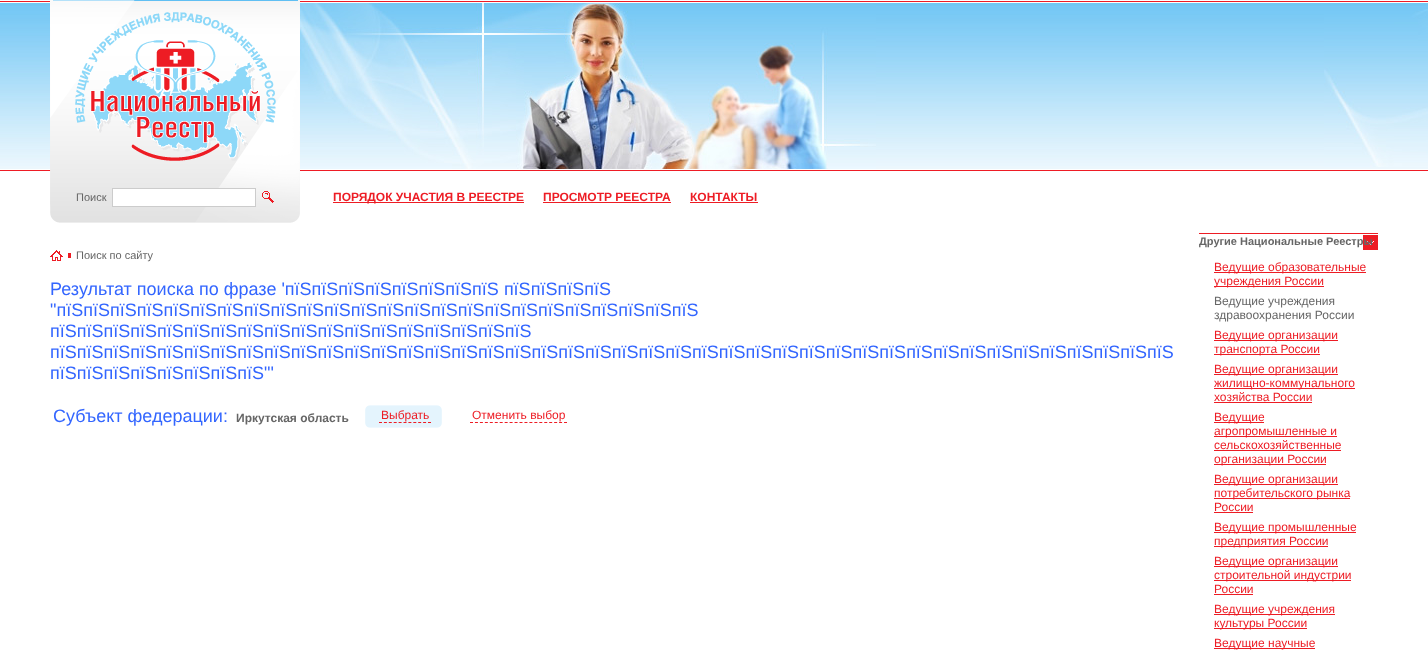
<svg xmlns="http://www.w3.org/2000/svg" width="1428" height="658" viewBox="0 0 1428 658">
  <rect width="100%" height="100%" fill="rgb(255,255,255)"/>
  <image x="0" y="1" width="1428" height="170" href="pic1.png"/>
  <image x="50" y="0" width="250" height="223" href="pic2.png"/>
  <text x="76" y="201" font-family="Liberation Sans" font-size="11" fill="rgb(102,102,102)">Поиск</text>
  <rect x="112.5" y="188.5" width="143" height="18" fill="rgb(255,255,255)" stroke="rgb(204,204,204)"/>
  <image x="262" y="191" width="12" height="12" href="pic3.png"/>
  <image x="300" y="3" width="576" height="166" href="pic4.png"/>
  <image x="1324" y="9" width="104" height="158" href="pic5.png"/>
  <rect x="333" y="202" width="191" height="1" fill="rgb(237,28,36)"/>
  <g font-family="Liberation Sans" font-size="12" font-weight="bold" fill="rgb(237,28,36)">
    <text x="333" y="201">ПОРЯДОК УЧАСТИЯ В РЕЕСТРЕ</text>
    <text x="543" y="201">ПРОСМОТР РЕЕСТРА</text>
  </g>
  <rect x="543" y="202" width="128" height="1" fill="rgb(237,28,36)"/>
  <text x="690" y="201" font-family="Liberation Sans" font-size="12" font-weight="bold" fill="rgb(237,28,36)">КОНТАКТЫ</text>
  <rect x="690" y="202" width="68" height="1" fill="rgb(237,28,36)"/>
  <rect x="68" y="253" width="3" height="5" fill="rgb(237,28,36)"/>
  <image x="50" y="250" width="13" height="11" href="pic6.png"/>
  <text x="76" y="259" font-family="Liberation Sans" font-size="11" fill="rgb(102,102,102)">Поиск по сайту</text>
  <g font-family="Liberation Sans" font-size="18" fill="rgb(51,102,255)">
    <text>
      <tspan x="50" y="295">Результат поиска по фразе 'пїЅпїЅпїЅпїЅпїЅпїЅпїЅпїЅ пїЅпїЅпїЅпїЅ</tspan>
      <tspan x="50" y="316">"пїЅпїЅпїЅпїЅпїЅпїЅпїЅпїЅпїЅпїЅпїЅпїЅпїЅпїЅпїЅпїЅпїЅпїЅпїЅпїЅпїЅпїЅпїЅпїЅ</tspan>
      <tspan x="50" y="337">пїЅпїЅпїЅпїЅпїЅпїЅпїЅпїЅпїЅпїЅпїЅпїЅпїЅпїЅпїЅпїЅпїЅпїЅ</tspan>
      <tspan x="50" y="358">пїЅпїЅпїЅпїЅпїЅпїЅпїЅпїЅпїЅпїЅпїЅпїЅпїЅпїЅпїЅпїЅпїЅпїЅпїЅпїЅпїЅпїЅпїЅпїЅпїЅпїЅпїЅпїЅпїЅпїЅпїЅпїЅпїЅпїЅпїЅпїЅпїЅпїЅпїЅпїЅпїЅпїЅ</tspan>
      <tspan x="50" y="379">пїЅпїЅпїЅпїЅпїЅпїЅпїЅпїЅ"'</tspan>
    </text>
    <text x="53" y="422">Субъект федерации:</text>
  </g>
  <text x="236" y="422" font-family="Liberation Sans" font-size="12" font-weight="bold" fill="rgb(102,102,102)">Иркутская область</text>
  <image x="365" y="405" width="77" height="23" href="pic7.png"/>
  <text x="381" y="419" font-family="Liberation Sans" font-size="12" fill="rgb(237,28,36)">Выбрать</text>
  <path d="M379 422.5H431" fill="none" stroke="rgb(237,28,36)" stroke-dasharray="3 1.9"/>
  <text x="472" y="419" font-family="Liberation Sans" font-size="12" fill="rgb(237,28,36)">Отменить выбор</text>
  <path d="M470 422.5H567" fill="none" stroke="rgb(237,28,36)" stroke-dasharray="3 1.95"/>
  <image x="1363" y="235" width="15" height="15" href="pic8.png"/>
  <rect x="1199" y="233" width="179" height="1" fill="rgb(237,28,36)"/>
  <text x="1199" y="245" font-family="Liberation Sans" font-size="11" font-weight="bold" fill="rgb(102,102,102)">Другие Национальные Реестры</text>
  <rect x="1214" y="272" width="152" height="1" fill="rgb(237,28,36)"/>
  <text x="1214" y="271" font-family="Liberation Sans" font-size="12" fill="rgb(237,28,36)">Ведущие образовательные</text>
  <rect x="1214" y="286" width="110" height="1" fill="rgb(237,28,36)"/>
  <text x="1214" y="285" font-family="Liberation Sans" font-size="12" fill="rgb(237,28,36)">учреждения России</text>
  <g font-family="Liberation Sans" font-size="12" fill="rgb(102,102,102)">
    <text>
      <tspan x="1214" y="305">Ведущие учреждения</tspan>
      <tspan x="1214" y="319">здравоохранения России</tspan>
    </text>
  </g>
  <rect x="1214" y="340" width="124" height="1" fill="rgb(237,28,36)"/>
  <text x="1214" y="339" font-family="Liberation Sans" font-size="12" fill="rgb(237,28,36)">Ведущие организации</text>
  <rect x="1214" y="354" width="106" height="1" fill="rgb(237,28,36)"/>
  <text x="1214" y="353" font-family="Liberation Sans" font-size="12" fill="rgb(237,28,36)">транспорта России</text>
  <rect x="1214" y="374" width="124" height="1" fill="rgb(237,28,36)"/>
  <text x="1214" y="373" font-family="Liberation Sans" font-size="12" fill="rgb(237,28,36)">Ведущие организации</text>
  <rect x="1214" y="388" width="141" height="1" fill="rgb(237,28,36)"/>
  <g font-family="Liberation Sans" font-size="12" fill="rgb(237,28,36)">
    <text>
      <tspan x="1214" y="387">жилищно-коммунального</tspan>
      <tspan x="1214" y="401">хозяйства России</tspan>
    </text>
  </g>
  <rect x="1214" y="402" width="98" height="1" fill="rgb(237,28,36)"/>
  <rect x="1214" y="422" width="50" height="1" fill="rgb(237,28,36)"/>
  <text x="1214" y="421" font-family="Liberation Sans" font-size="12" fill="rgb(237,28,36)">Ведущие</text>
  <rect x="1214" y="436" width="123" height="1" fill="rgb(237,28,36)"/>
  <g font-family="Liberation Sans" font-size="12" fill="rgb(237,28,36)">
    <text>
      <tspan x="1214" y="435">агропромышленные и</tspan>
      <tspan x="1214" y="449">сельскохозяйственные</tspan>
    </text>
  </g>
  <rect x="1214" y="450" width="127" height="1" fill="rgb(237,28,36)"/>
  <rect x="1214" y="464" width="112" height="1" fill="rgb(237,28,36)"/>
  <text x="1214" y="463" font-family="Liberation Sans" font-size="12" fill="rgb(237,28,36)">организации России</text>
  <rect x="1214" y="484" width="124" height="1" fill="rgb(237,28,36)"/>
  <text x="1214" y="483" font-family="Liberation Sans" font-size="12" fill="rgb(237,28,36)">Ведущие организации</text>
  <rect x="1214" y="498" width="136" height="1" fill="rgb(237,28,36)"/>
  <g font-family="Liberation Sans" font-size="12" fill="rgb(237,28,36)">
    <text>
      <tspan x="1214" y="497">потребительского рынка</tspan>
      <tspan x="1214" y="511">России</tspan>
    </text>
  </g>
  <rect x="1214" y="512" width="39" height="1" fill="rgb(237,28,36)"/>
  <rect x="1214" y="532" width="142" height="1" fill="rgb(237,28,36)"/>
  <text x="1214" y="531" font-family="Liberation Sans" font-size="12" fill="rgb(237,28,36)">Ведущие промышленные</text>
  <rect x="1214" y="546" width="114" height="1" fill="rgb(237,28,36)"/>
  <text x="1214" y="545" font-family="Liberation Sans" font-size="12" fill="rgb(237,28,36)">предприятия России</text>
  <rect x="1214" y="566" width="124" height="1" fill="rgb(237,28,36)"/>
  <text x="1214" y="565" font-family="Liberation Sans" font-size="12" fill="rgb(237,28,36)">Ведущие организации</text>
  <rect x="1214" y="580" width="137" height="1" fill="rgb(237,28,36)"/>
  <g font-family="Liberation Sans" font-size="12" fill="rgb(237,28,36)">
    <text>
      <tspan x="1214" y="579">строительной индустрии</tspan>
      <tspan x="1214" y="593">России</tspan>
    </text>
  </g>
  <rect x="1214" y="594" width="39" height="1" fill="rgb(237,28,36)"/>
  <rect x="1214" y="614" width="121" height="1" fill="rgb(237,28,36)"/>
  <text x="1214" y="613" font-family="Liberation Sans" font-size="12" fill="rgb(237,28,36)">Ведущие учреждения</text>
  <rect x="1214" y="628" width="93" height="1" fill="rgb(237,28,36)"/>
  <text x="1214" y="627" font-family="Liberation Sans" font-size="12" fill="rgb(237,28,36)">культуры России</text>
  <rect x="1214" y="648" width="101" height="1" fill="rgb(237,28,36)"/>
  <text x="1214" y="647" font-family="Liberation Sans" font-size="12" fill="rgb(237,28,36)">Ведущие научные</text>
</svg>
